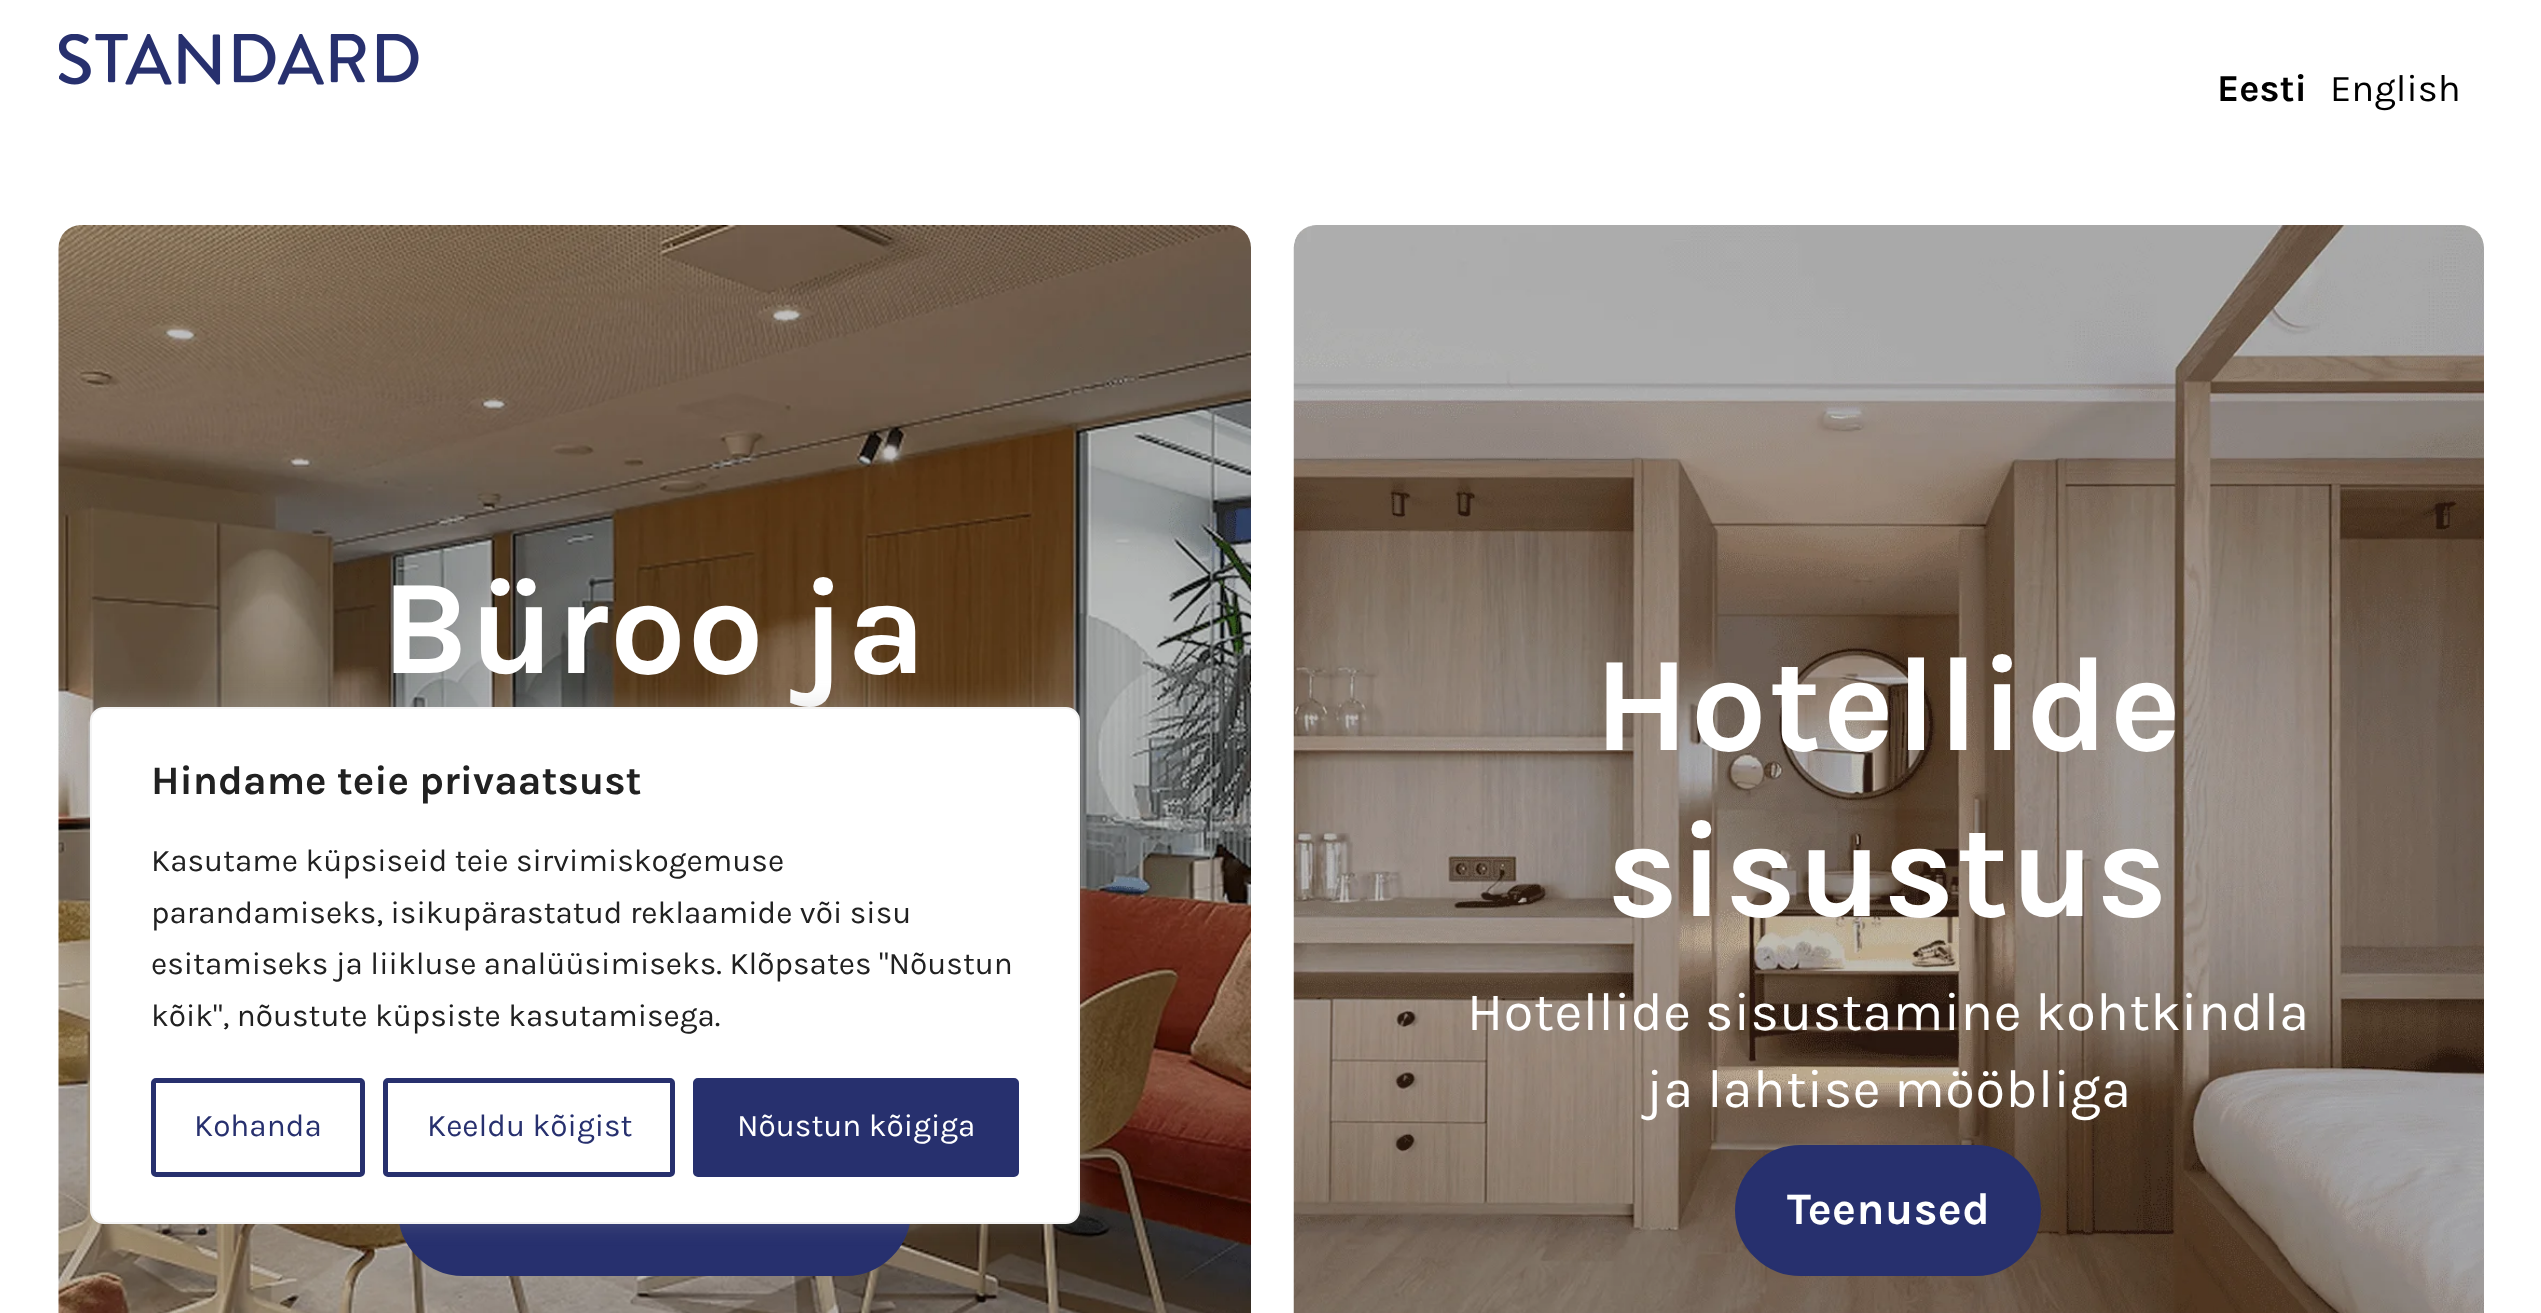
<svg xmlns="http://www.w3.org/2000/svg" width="2541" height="1313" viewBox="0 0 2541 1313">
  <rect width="100%" height="100%" fill="rgb(255,255,255)"/>
  <image x="59" y="34" width="360" height="51" href="pic1.png"/>
  <text x="2217" y="101" font-family="Karla" font-size="38" font-weight="bold" fill="rgb(0,0,0)">Eesti</text>
  <text x="2330" y="101" font-family="Karla" font-size="38" fill="rgb(0,0,0)">English</text>
  <image x="58" y="225" width="1193" height="1088" href="pic2.png"/>
  <text x="381" y="673" font-family="Karla" font-size="135" font-weight="bold" letter-spacing="1.25" fill="rgb(255,255,255)">Büroo ja</text>
  <rect x="399" y="1146" width="511" height="129" rx="64.5" fill="rgb(39,48,110)" stroke="rgb(39,48,110)" stroke-width="2"/>
  <image x="1293" y="225" width="1191" height="1088" href="pic3.png"/>
  <g font-family="Karla" font-size="135" font-weight="bold" letter-spacing="1.25" fill="rgb(255,255,255)">
    <text x="1594" y="750">Hotellide</text>
    <text x="1607" y="916">sisustus</text>
  </g>
  <g font-family="Karla" font-size="54" letter-spacing="0.55" fill="rgb(255,255,255)">
    <text x="1467" y="1030">Hotellide sisustamine kohtkindla</text>
    <text x="1646" y="1107">ja lahtise mööbliga</text>
  </g>
  <rect x="1736" y="1146" width="304" height="129" rx="64.5" fill="rgb(39,48,110)" stroke="rgb(39,48,110)" stroke-width="2"/>
  <text x="1787" y="1224" font-family="Karla" font-size="45" font-weight="bold" letter-spacing="0.5" fill="rgb(255,255,255)">Teenused</text>
  <rect x="90" y="704" width="990" height="518" rx="14" fill="rgba(172,171,171,0.3)" filter="blur(11px)"/>
  <rect x="91" y="708" width="988" height="515" rx="13" fill="rgb(255,255,255)" stroke="rgb(244,244,244)" stroke-width="2"/>
  <text x="151" y="794" font-family="Karla" font-size="40.5" font-weight="bold" fill="rgb(33,33,33)">Hindame teie privaatsust</text>
  <g font-family="Karla" font-size="31.5" fill="rgb(33,33,33)">
    <text>
      <tspan x="151" y="871">Kasutame küpsiseid teie sirvimiskogemuse</tspan>
      <tspan x="151" y="923">parandamiseks, isikupärastatud reklaamide või sisu</tspan>
      <tspan x="151" y="974">esitamiseks ja liikluse analüüsimiseks. Klõpsates "Nõustun</tspan>
      <tspan x="151" y="1026">kõik", nõustute küpsiste kasutamisega.</tspan>
    </text>
  </g>
  <rect x="153.5" y="1080.5" width="209" height="94" rx="2.5" fill="none" stroke="rgb(39,48,110)" stroke-width="5"/>
  <text x="194" y="1136" font-family="Karla" font-size="31.5" fill="rgb(39,48,110)">Kohanda</text>
  <rect x="385.5" y="1080.5" width="287" height="94" rx="2.5" fill="none" stroke="rgb(39,48,110)" stroke-width="5"/>
  <text x="427" y="1136" font-family="Karla" font-size="31.5" fill="rgb(39,48,110)">Keeldu kõigist</text>
  <rect x="695.5" y="1080.5" width="321" height="94" rx="2.5" fill="rgb(39,48,110)" stroke="rgb(39,48,110)" stroke-width="5"/>
  <text x="737" y="1136" font-family="Karla" font-size="31.5" fill="rgb(255,255,255)">Nõustun kõigiga</text>
</svg>
